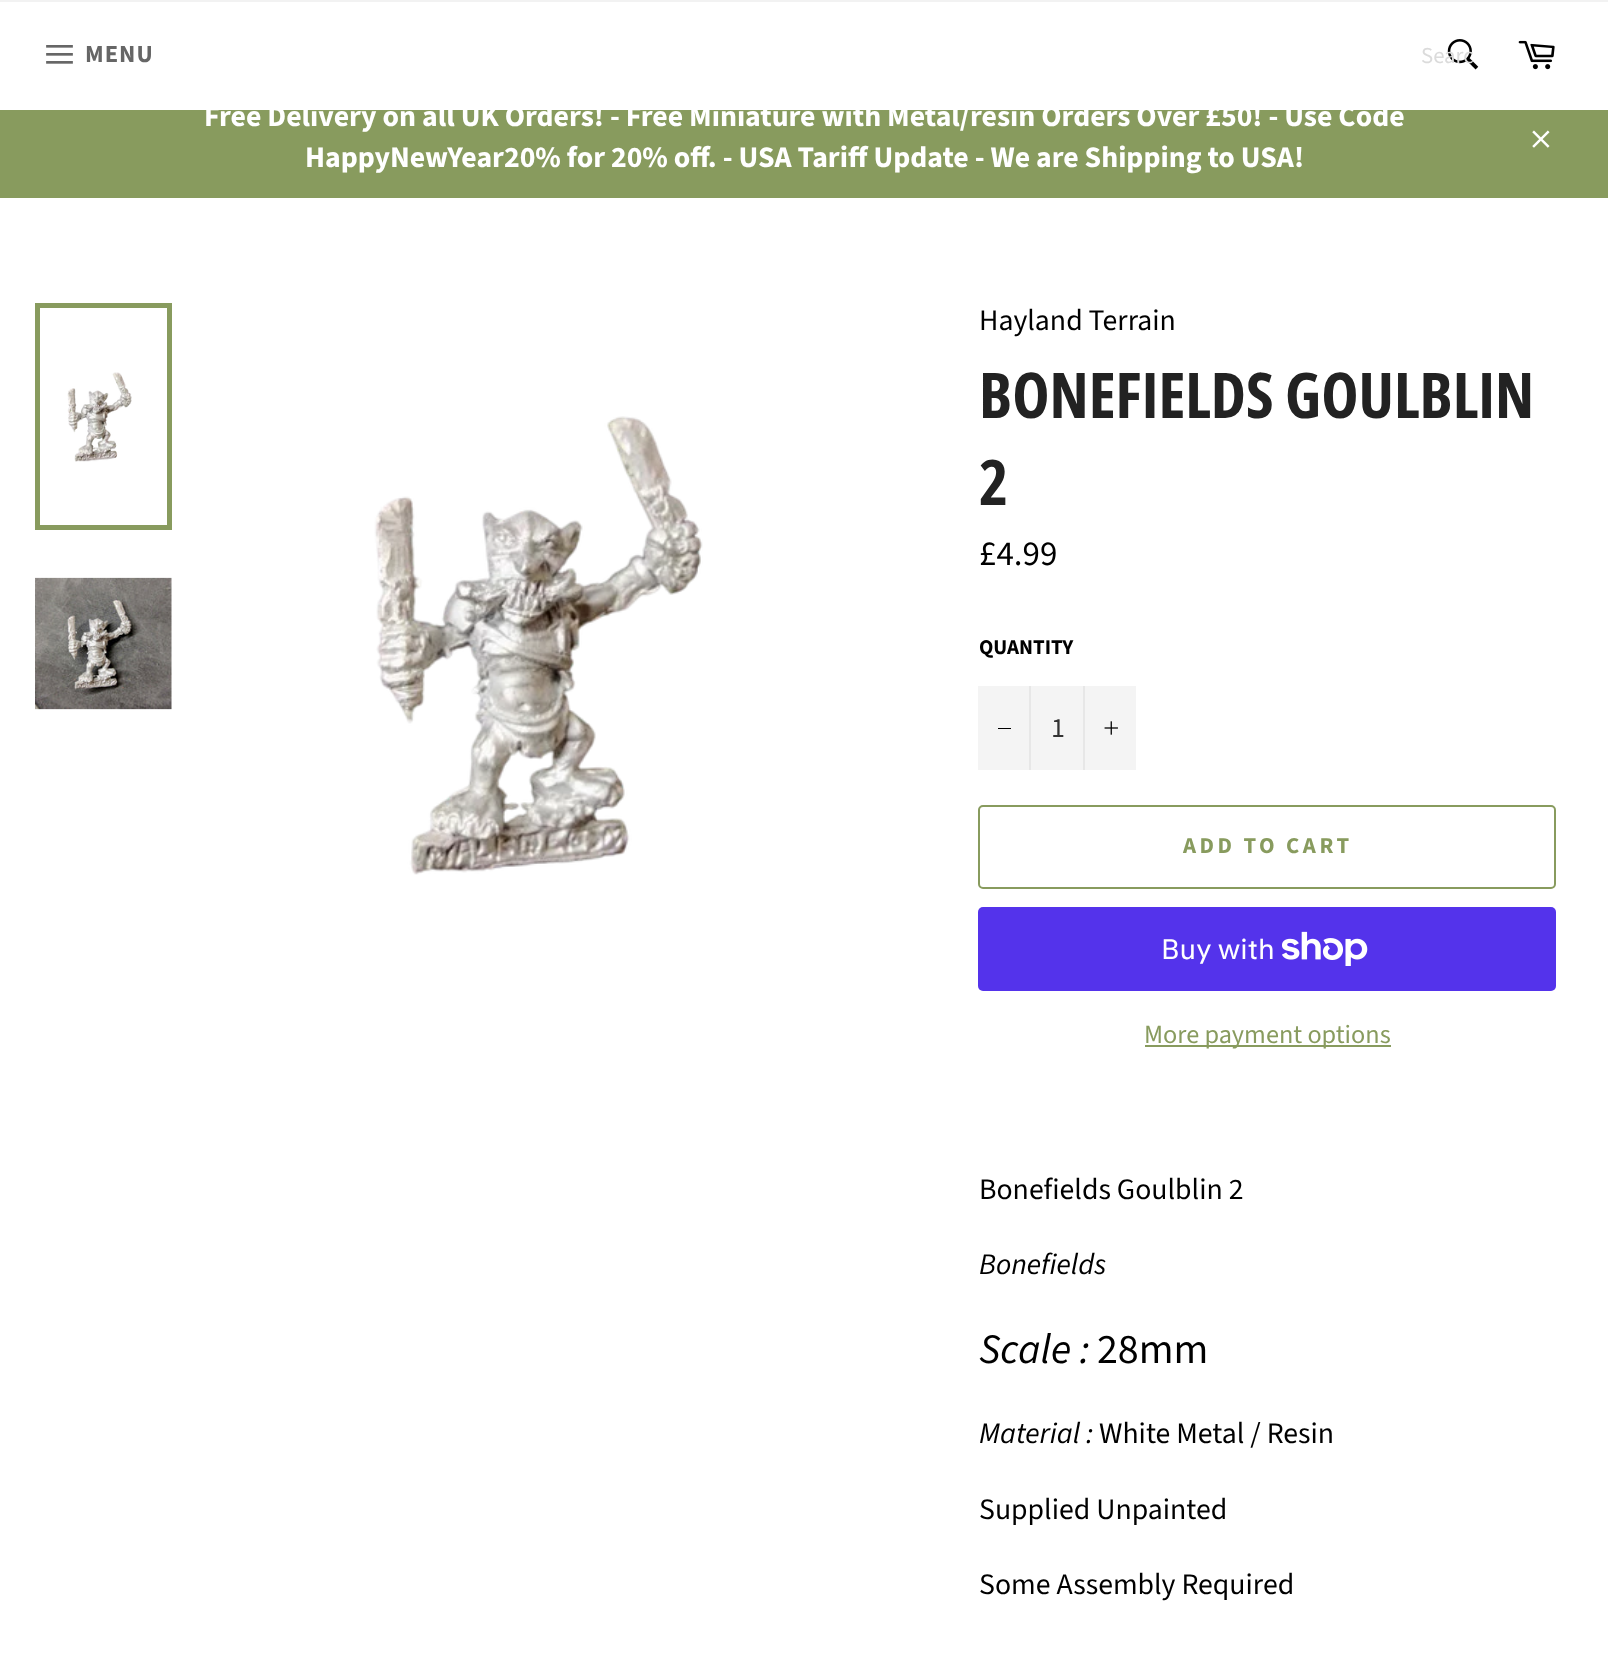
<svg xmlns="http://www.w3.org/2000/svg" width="1608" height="1679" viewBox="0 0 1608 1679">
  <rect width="100%" height="100%" fill="rgb(255,255,255)"/>
  <rect x="0" y="0" width="1608" height="2" fill="rgb(242,242,242)"/>
  <image x="46" y="45" width="27" height="19" href="pic1.png"/>
  <text x="85" y="62" font-family="Source Sans Pro" font-size="24.5" font-weight="bold" letter-spacing="1" fill="rgb(102,102,102)">MENU</text>
  <image x="1447" y="39" width="32" height="31" href="pic2.png"/>
  <text x="1421" y="63" font-family="Source Sans Pro" font-size="22.75" fill="rgb(219,219,219)">Searc</text>
  <image x="1518" y="40" width="37" height="30" href="pic3.png"/>
  <rect x="0" y="110" width="1608" height="88" fill="rgb(136,155,94)"/>
  <g font-family="Source Sans Pro" font-size="29.75" font-weight="bold" fill="rgb(255,255,255)">
    <text x="204" y="126">Free Delivery on all UK Orders! - Free Miniature with Metal/resin Orders Over £50! - Use Code</text>
    <text x="305" y="167">HappyNewYear20% for 20% off. - USA Tariff Update - We are Shipping to USA!</text>
  </g>
  <image x="1532" y="130" width="18" height="18" href="pic4.png"/>
  <image x="67" y="372" width="65" height="90" href="pic5.png"/>
  <rect x="37.5" y="305.5" width="132" height="222" fill="none" stroke="rgb(136,155,94)" stroke-width="5"/>
  <image x="35" y="577" width="137" height="133" href="pic6.png"/>
  <image x="374" y="416" width="329" height="459" href="pic7.png"/>
  <text x="979" y="330" font-family="Source Sans Pro" font-size="29.75" fill="rgb(0,0,0)">Hayland Terrain</text>
  <g font-family="Open Sans Condensed" font-size="63" font-weight="bold" fill="rgb(34,34,34)">
    <text>
      <tspan x="979" y="418">BONEFIELDS GOULBLIN</tspan>
      <tspan x="979" y="505">2</tspan>
    </text>
  </g>
  <text x="979" y="565" font-family="Source Sans Pro" font-size="35" fill="rgb(0,0,0)">£4.99</text>
  <text x="979" y="654" font-family="Source Sans Pro" font-size="21" font-weight="bold" fill="rgb(0,0,0)">QUANTITY</text>
  <rect x="978" y="686" width="158" height="84" fill="rgb(244,244,244)"/>
  <rect x="1029" y="686" width="2" height="84" fill="rgb(231,231,231)"/>
  <rect x="998" y="728" width="13" height="1" fill="rgb(0,0,0)"/>
  <text x="1051" y="737" font-family="Source Sans Pro" font-size="28" fill="rgb(51,51,51)">1</text>
  <rect x="1083" y="686" width="2" height="84" fill="rgb(231,231,231)"/>
  <image x="1104" y="721" width="14" height="14" href="pic8.png"/>
  <rect x="979" y="806" width="576" height="82" rx="4" fill="none" stroke="rgb(136,155,94)" stroke-width="2"/>
  <text x="1183" y="853" font-family="Source Sans Pro" font-size="22.75" font-weight="bold" letter-spacing="3.5" fill="rgb(136,155,94)">ADD TO CART</text>
  <rect x="978" y="907" width="578" height="84" rx="5" fill="rgb(84,51,235)"/>
  <text x="1161" y="959" font-family="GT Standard" font-size="28" fill="rgb(255,255,255)">Buy with</text>
  <image x="1282" y="931" width="86" height="35" href="pic9.png"/>
  <rect x="1145" y="1045" width="246" height="2" fill="rgb(136,155,94)"/>
  <text x="1144" y="1043" font-family="Source Sans Pro" font-size="26.25" fill="rgb(136,155,94)">More payment options</text>
  <text x="979" y="1199" font-family="Source Sans Pro" font-size="29.75" fill="rgb(0,0,0)">Bonefields Goulblin 2</text>
  <text x="979" y="1274" font-family="Source Sans Pro" font-size="29.75" font-style="italic" fill="rgb(0,0,0)">Bonefields</text>
  <text x="979" y="1363" font-family="Source Sans Pro" font-size="42" font-style="italic" fill="rgb(0,0,0)">Scale :</text>
  <text x="1097" y="1363" font-family="Source Sans Pro" font-size="42" fill="rgb(0,0,0)">28mm</text>
  <text x="979" y="1443" font-family="Source Sans Pro" font-size="29.75" font-style="italic" fill="rgb(0,0,0)">Material :</text>
  <g font-family="Source Sans Pro" font-size="29.75" fill="rgb(0,0,0)">
    <text x="1099" y="1443">White Metal / Resin</text>
    <text x="979" y="1519">Supplied Unpainted</text>
    <text x="979" y="1594">Some Assembly Required</text>
  </g>
</svg>
